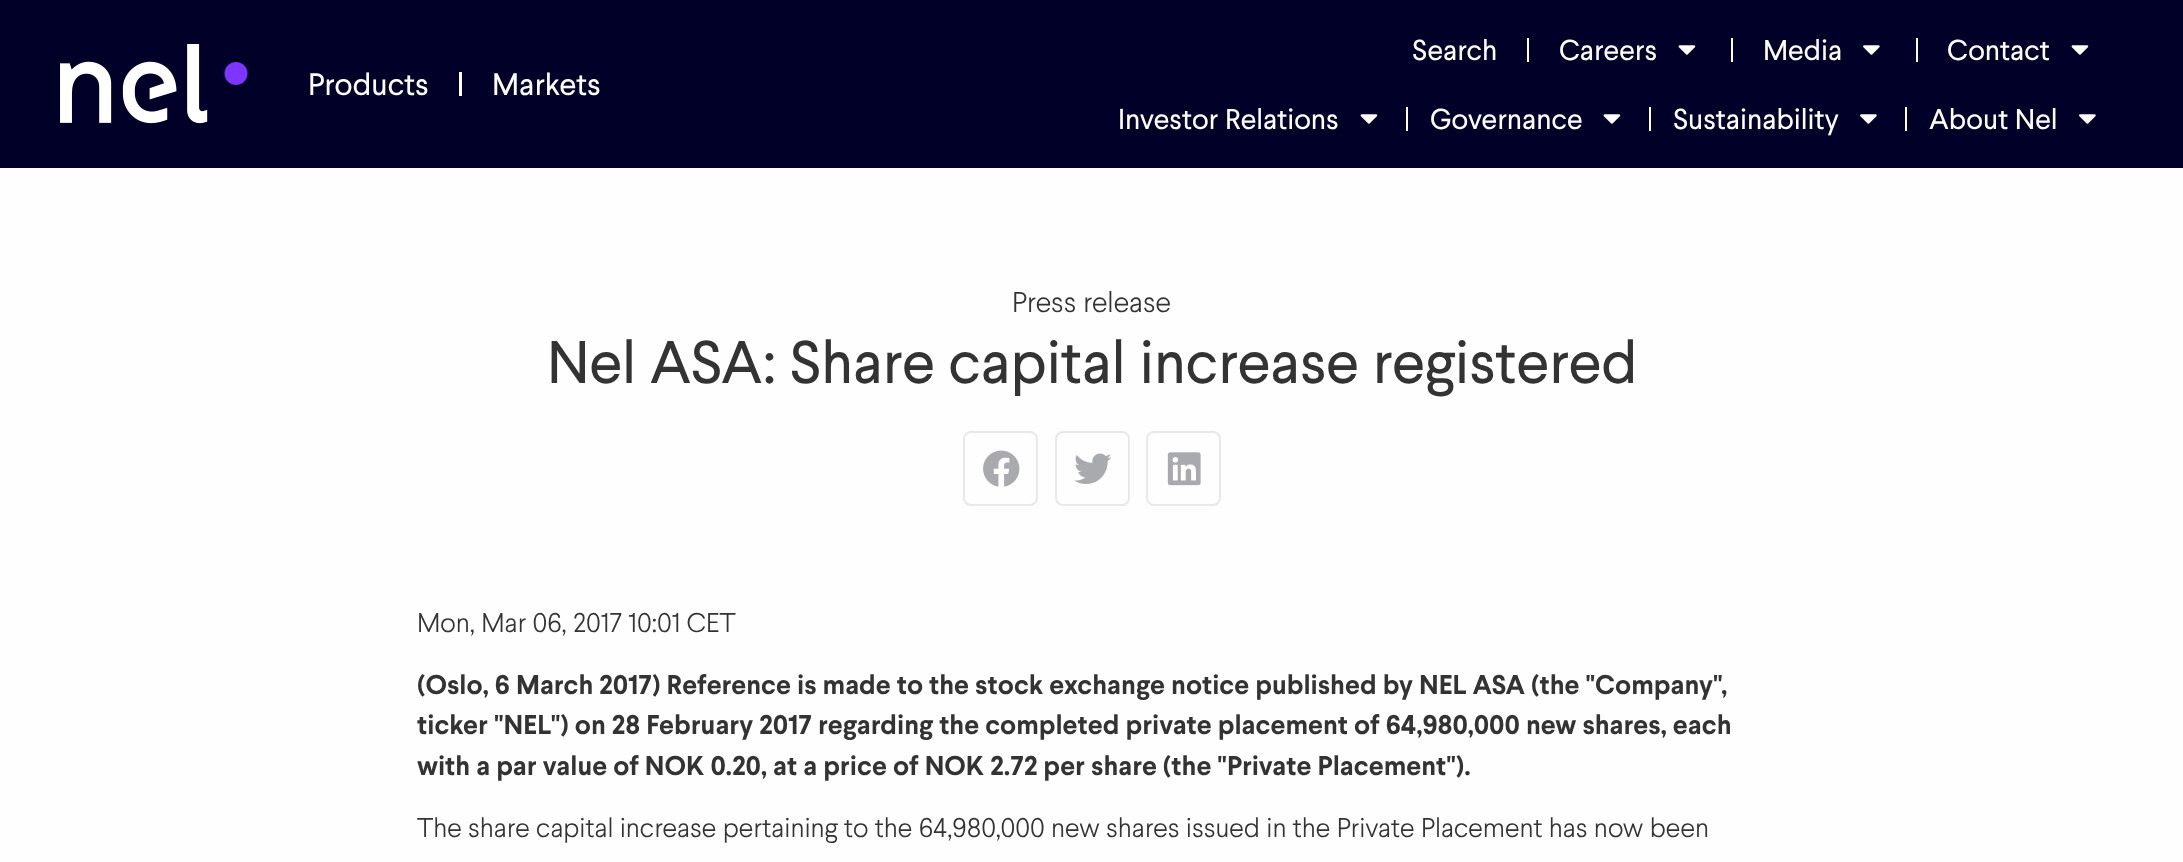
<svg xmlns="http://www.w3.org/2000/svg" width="2183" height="862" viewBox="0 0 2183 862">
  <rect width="100%" height="100%" fill="rgb(254,254,254)"/>
  <rect x="0" y="0" width="2183" height="168" fill="rgb(0,0,40)"/>
  <image x="60" y="44" width="188" height="80" href="pic1.png"/>
  <text x="308" y="95" font-family="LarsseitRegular" font-size="31" fill="rgb(254,254,254)">Products</text>
  <rect x="459" y="72" width="3" height="24" fill="rgb(254,254,254)"/>
  <text x="492" y="95" font-family="LarsseitRegular" font-size="31" fill="rgb(254,254,254)">Markets</text>
  <text x="1412" y="60" font-family="LarsseitRegular" font-size="28.75" fill="rgb(254,254,254)">Search</text>
  <rect x="1527" y="38" width="2" height="24" fill="rgb(254,254,254)"/>
  <text x="1559" y="60" font-family="LarsseitRegular" font-size="28.75" fill="rgb(254,254,254)">Careers</text>
  <image x="1678" y="45" width="18" height="10" href="pic2.png"/>
  <rect x="1731" y="38" width="2" height="24" fill="rgb(254,254,254)"/>
  <text x="1763" y="60" font-family="LarsseitRegular" font-size="28.75" fill="rgb(254,254,254)">Media</text>
  <image x="1863" y="45" width="17" height="10" href="pic3.png"/>
  <rect x="1916" y="38" width="2" height="24" fill="rgb(254,254,254)"/>
  <text x="1947" y="60" font-family="LarsseitRegular" font-size="28.75" fill="rgb(254,254,254)">Contact</text>
  <image x="2071" y="45" width="18" height="10" href="pic2.png"/>
  <text x="1118" y="129" font-family="LarsseitRegular" font-size="28.75" fill="rgb(254,254,254)">Investor Relations</text>
  <image x="1360" y="114" width="18" height="10" href="pic2.png"/>
  <rect x="1406" y="107" width="2" height="24" fill="rgb(254,254,254)"/>
  <text x="1430" y="129" font-family="LarsseitRegular" font-size="28.75" fill="rgb(254,254,254)">Governance</text>
  <image x="1603" y="114" width="18" height="10" href="pic2.png"/>
  <rect x="1649" y="107" width="2" height="24" fill="rgb(254,254,254)"/>
  <text x="1673" y="129" font-family="LarsseitRegular" font-size="28.75" fill="rgb(254,254,254)">Sustainability</text>
  <image x="1860" y="114" width="17" height="10" href="pic3.png"/>
  <rect x="1905" y="107" width="2" height="24" fill="rgb(254,254,254)"/>
  <text x="1929" y="129" font-family="LarsseitRegular" font-size="28.75" fill="rgb(254,254,254)">About Nel</text>
  <image x="2079" y="114" width="17" height="10" href="pic3.png"/>
  <text x="1012" y="312" font-family="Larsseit" font-size="28.75" font-weight="300" fill="rgb(51,51,51)">Press release</text>
  <text x="547" y="383" font-family="LarsseitRegular" font-size="60" fill="rgb(51,51,51)">Nel ASA: Share capital increase registered</text>
  <rect x="964" y="432" width="73" height="73" rx="7" fill="none" stroke="rgb(232,232,232)" stroke-width="2"/>
  <image x="983" y="450" width="37" height="37" href="pic4.png"/>
  <rect x="1056" y="432" width="73" height="73" rx="7" fill="none" stroke="rgb(232,232,232)" stroke-width="2"/>
  <image x="1074" y="453" width="38" height="31" href="pic5.png"/>
  <rect x="1147" y="432" width="73" height="73" rx="7" fill="none" stroke="rgb(232,232,232)" stroke-width="2"/>
  <image x="1167" y="452" width="34" height="34" href="pic6.png"/>
  <text x="417" y="632" font-family="Larsseit" font-size="27" font-weight="300" fill="rgb(51,51,51)">Mon, Mar 06, 2017 10:01 CET</text>
  <g font-family="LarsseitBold" font-size="27" font-weight="bold" fill="rgb(51,51,51)">
    <text>
      <tspan x="417" y="694">(Oslo, 6 March 2017) Reference is made to the stock exchange notice published by NEL ASA (the "Company",</tspan>
      <tspan x="417" y="734">ticker "NEL") on 28 February 2017 regarding the completed private placement of 64,980,000 new shares, each</tspan>
      <tspan x="417" y="775">with a par value of NOK 0.20, at a price of NOK 2.72 per share (the "Private Placement").</tspan>
    </text>
  </g>
  <text x="417" y="837" font-family="Larsseit" font-size="27" font-weight="300" fill="rgb(51,51,51)">The share capital increase pertaining to the 64,980,000 new shares issued in the Private Placement has now been</text>
</svg>
